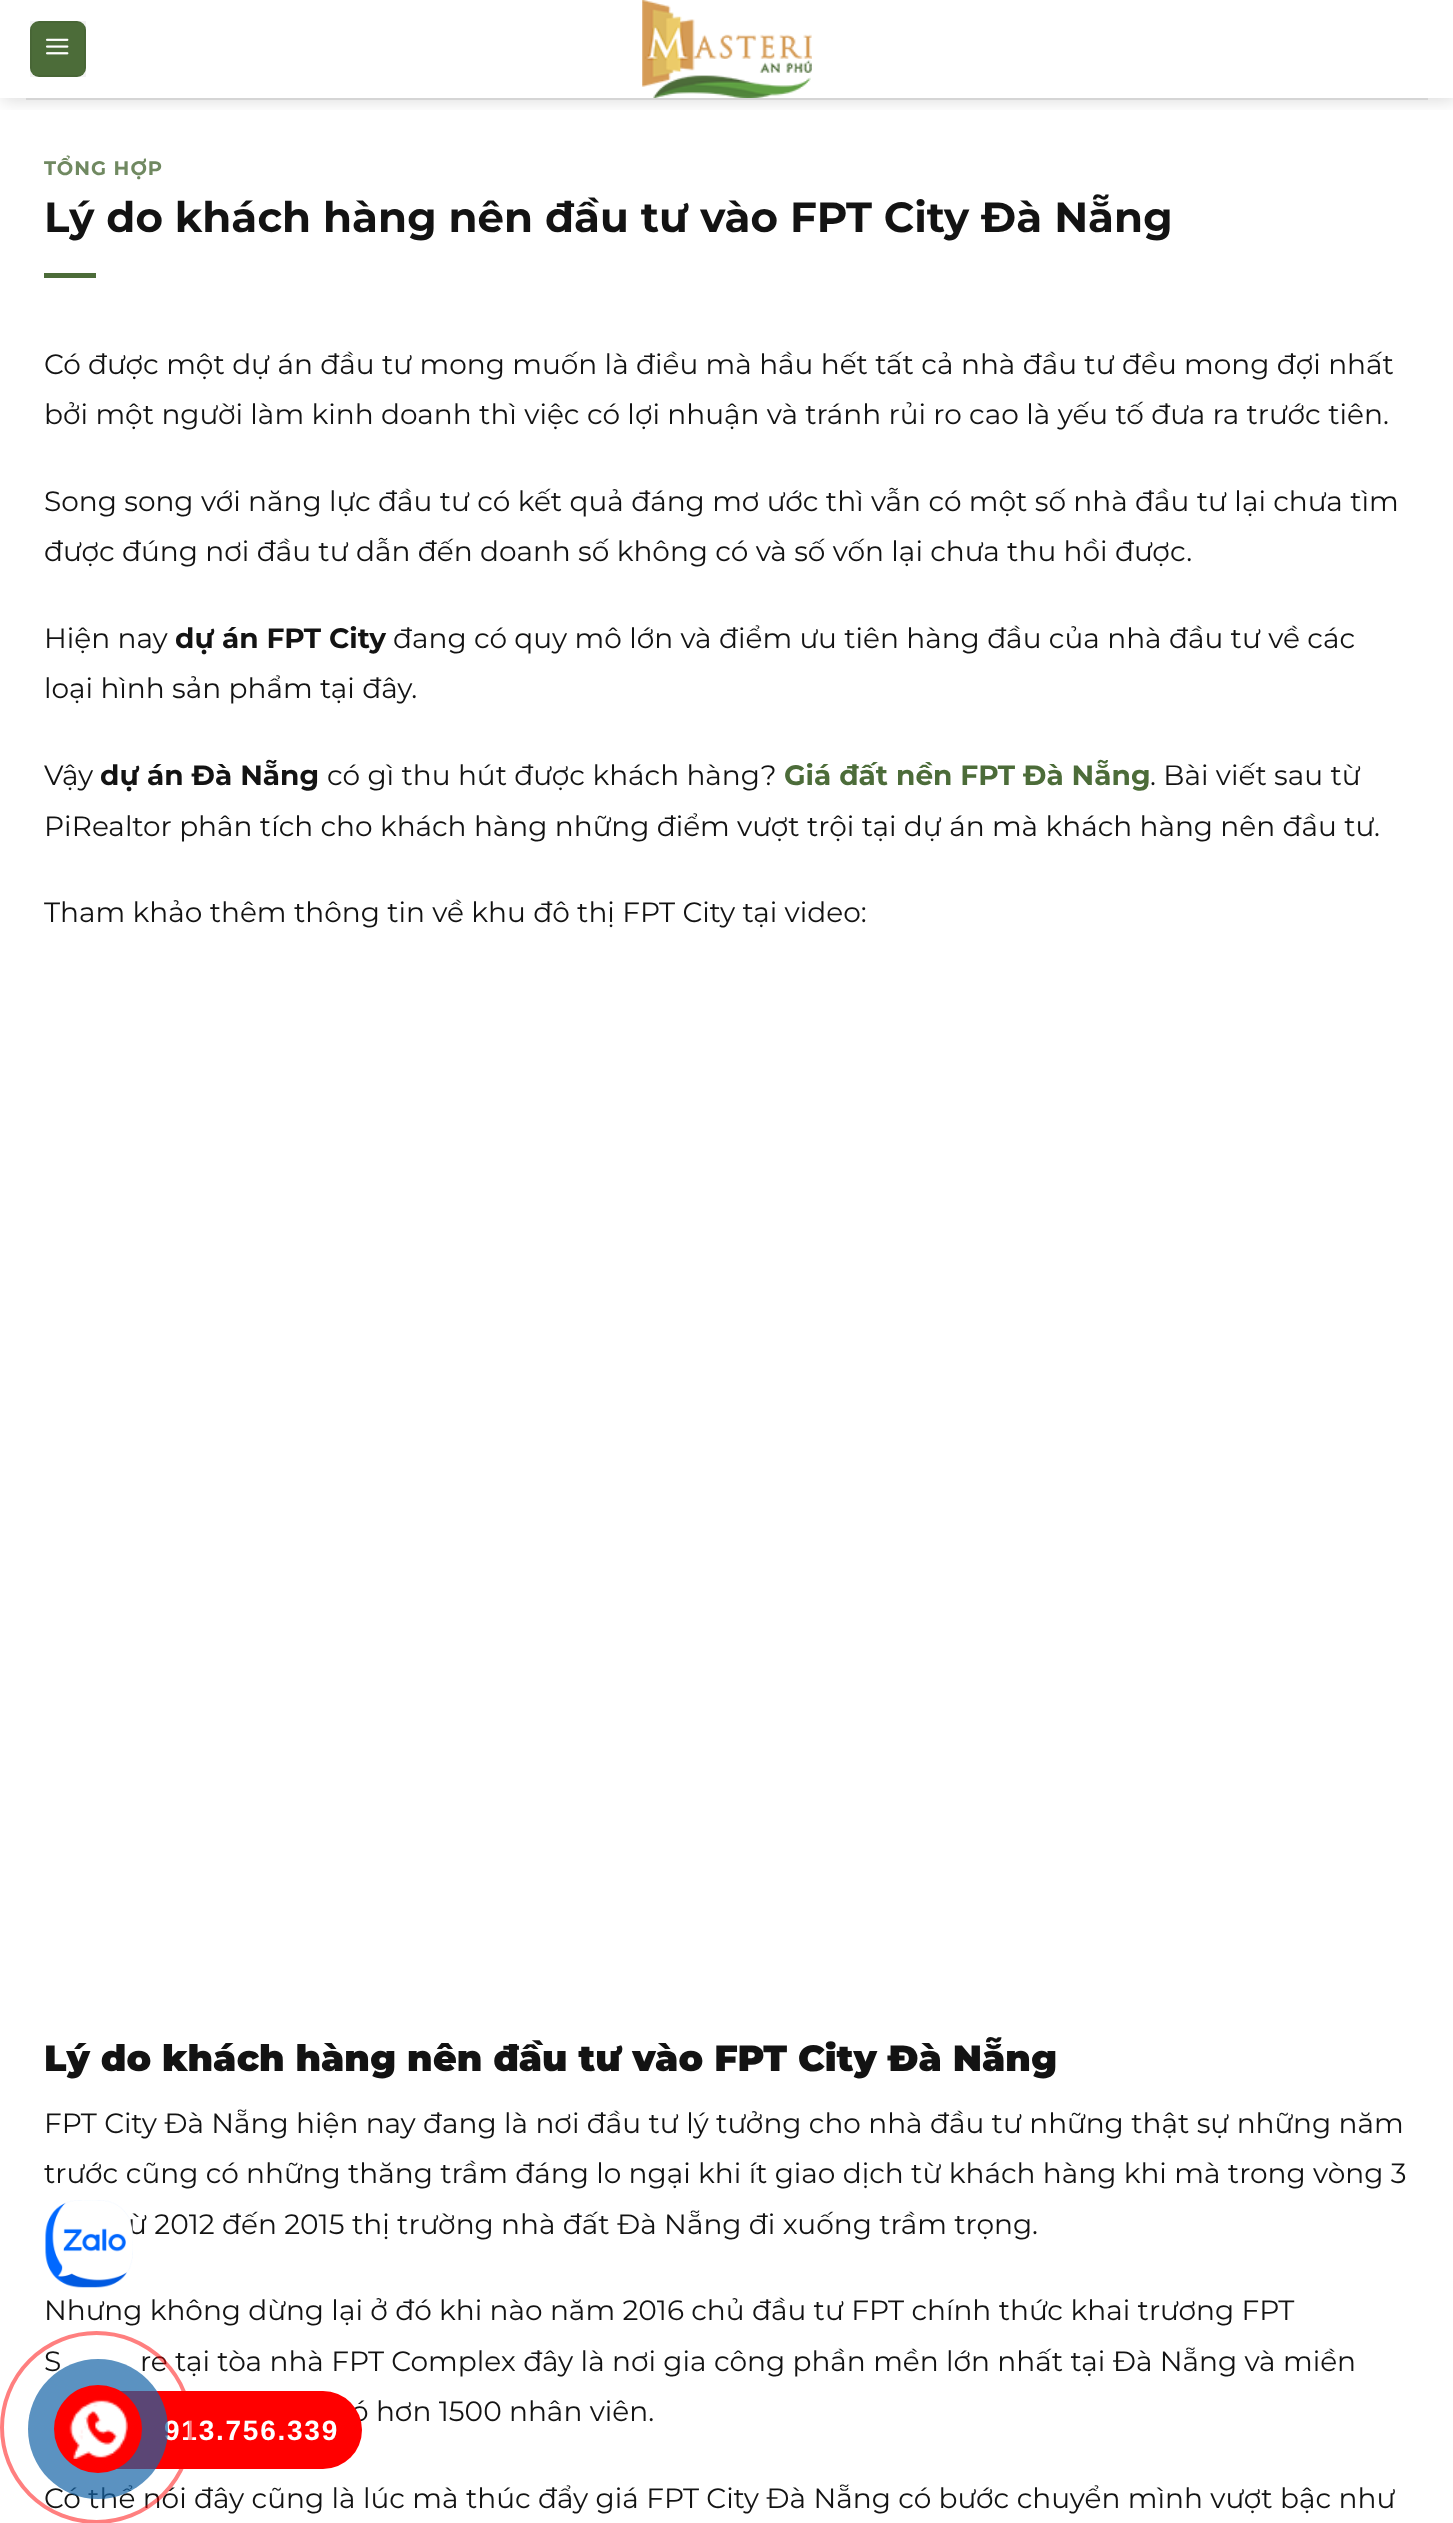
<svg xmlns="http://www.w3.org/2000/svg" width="1453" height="2523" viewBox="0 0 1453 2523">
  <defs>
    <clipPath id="clip1"><rect x="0" y="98" width="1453" height="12"/></clipPath>
  </defs>
  <rect width="100%" height="100%" fill="rgb(255,255,255)"/>
  <g clip-path="url(#clip1)">
    <rect x="2" y="2" width="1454" height="98" fill="rgba(0,0,0,0.15)" filter="blur(9px)"/>
  </g>
  <rect x="30" y="21" width="56" height="56" rx="9" fill="rgb(76,108,57)"/>
  <rect x="31" y="22" width="54" height="54" fill="none" stroke="rgba(0,0,0,0.05)" stroke-width="2"/>
  <image x="46" y="38" width="23" height="17" href="pic1.png"/>
  <image x="642" y="0" width="170" height="98" href="pic2.png"/>
  <rect x="26" y="98" width="1402" height="2" fill="rgb(213,213,213)"/>
  <text x="44" y="175" font-family="Montserrat" font-size="19.5" font-weight="bold" letter-spacing="1" fill="rgb(112,137,97)">TỔNG HỢP</text>
  <text x="44" y="232" font-family="Montserrat" font-size="42" font-weight="bold" fill="rgb(19,19,19)">Lý do khách hàng nên đầu tư vào FPT City Đà Nẵng</text>
  <rect x="44" y="273" width="52" height="5" fill="rgb(76,108,57)"/>
  <g font-family="Montserrat" font-size="28" fill="rgb(19,19,19)">
    <text>
      <tspan x="44" y="374">Có được một dự án đầu tư mong muốn là điều mà hầu hết tất cả nhà đầu tư đều mong đợi nhất</tspan>
      <tspan x="44" y="424">bởi một người làm kinh doanh thì việc có lợi nhuận và tránh rủi ro cao là yếu tố đưa ra trước tiên.</tspan>
    </text>
    <text>
      <tspan x="44" y="511">Song song với năng lực đầu tư có kết quả đáng mơ ước thì vẫn có một số nhà đầu tư lại chưa tìm</tspan>
      <tspan x="44" y="561">được đúng nơi đầu tư dẫn đến doanh số không có và số vốn lại chưa thu hồi được.</tspan>
    </text>
    <text x="44" y="648">Hiện nay</text>
  </g>
  <text x="175" y="648" font-family="Montserrat" font-size="28" font-weight="bold" fill="rgb(19,19,19)">dự án FPT City</text>
  <g font-family="Montserrat" font-size="28" fill="rgb(19,19,19)">
    <text x="393" y="648">đang có quy mô lớn và điểm ưu tiên hàng đầu của nhà đầu tư về các</text>
    <text x="44" y="698">loại hình sản phẩm tại đây.</text>
    <text x="44" y="785">Vậy</text>
  </g>
  <text x="100" y="785" font-family="Montserrat" font-size="28" font-weight="bold" fill="rgb(19,19,19)">dự án Đà Nẵng</text>
  <text x="327" y="785" font-family="Montserrat" font-size="28" fill="rgb(19,19,19)">có gì thu hút được khách hàng?</text>
  <text x="784" y="785" font-family="Montserrat" font-size="28" font-weight="bold" fill="rgb(76,108,57)">Giá đất nền FPT Đà Nẵng</text>
  <g font-family="Montserrat" font-size="28" fill="rgb(19,19,19)">
    <text x="1150" y="785">. Bài viết sau từ</text>
    <text x="44" y="836">PiRealtor phân tích cho khách hàng những điểm vượt trội tại dự án mà khách hàng nên đầu tư.</text>
    <text x="44" y="922">Tham khảo thêm thông tin về khu đô thị FPT City tại video:</text>
  </g>
  <text x="44" y="2071" font-family="Montserrat" font-size="36.4" font-weight="900" fill="rgb(19,19,19)">Lý do khách hàng nên đầu tư vào FPT City Đà Nẵng</text>
  <g font-family="Montserrat" font-size="28" fill="rgb(19,19,19)">
    <text>
      <tspan x="44" y="2133">FPT City Đà Nẵng hiện nay đang là nơi đầu tư lý tưởng cho nhà đầu tư những thật sự những năm</tspan>
      <tspan x="44" y="2183">trước cũng có những thăng trầm đáng lo ngại khi ít giao dịch từ khách hàng khi mà trong vòng 3</tspan>
    </text>
    <text x="128" y="2234">ừ 2012 đến 2015 thị trường nhà đất Đà Nẵng đi xuống trầm trọng.</text>
    <text>
      <tspan x="44" y="2320">Nhưng không dừng lại ở đó khi nào năm 2016 chủ đầu tư FPT chính thức khai trương FPT</tspan>
      <tspan x="44" y="2371">S</tspan>
    </text>
    <text x="140" y="2371">re tại tòa nhà FPT Complex đây là nơi gia công phần mền lớn nhất tại Đà Nẵng và miền</text>
    <text x="351" y="2421">ó hơn 1500 nhân viên.</text>
    <text x="44" y="2508">Có thể nói đây cũng là lúc mà thúc đẩy giá FPT City Đà Nẵng có bước chuyển mình vượt bậc như</text>
  </g>
  <image x="45" y="2200" width="88" height="88" href="pic3.png"/>
  <rect x="74" y="2391" width="288" height="78" rx="39" fill="rgb(255,0,0)"/>
  <text x="164" y="2440" font-family="Liberation Sans" font-size="28" font-weight="bold" letter-spacing="1.75" fill="rgb(255,255,255)">913.756.339</text>
  <circle cx="96.5" cy="2427.5" r="94.5" fill="none" stroke="rgba(255,0,0,0.5)" stroke-width="4"/>
  <circle cx="98" cy="2429" r="70" fill="rgba(21,100,167,0.7)"/>
  <circle cx="98" cy="2429" r="44" fill="rgb(255,0,0)"/>
  <image x="69" y="2399" width="59" height="60" href="pic4.png"/>
</svg>
